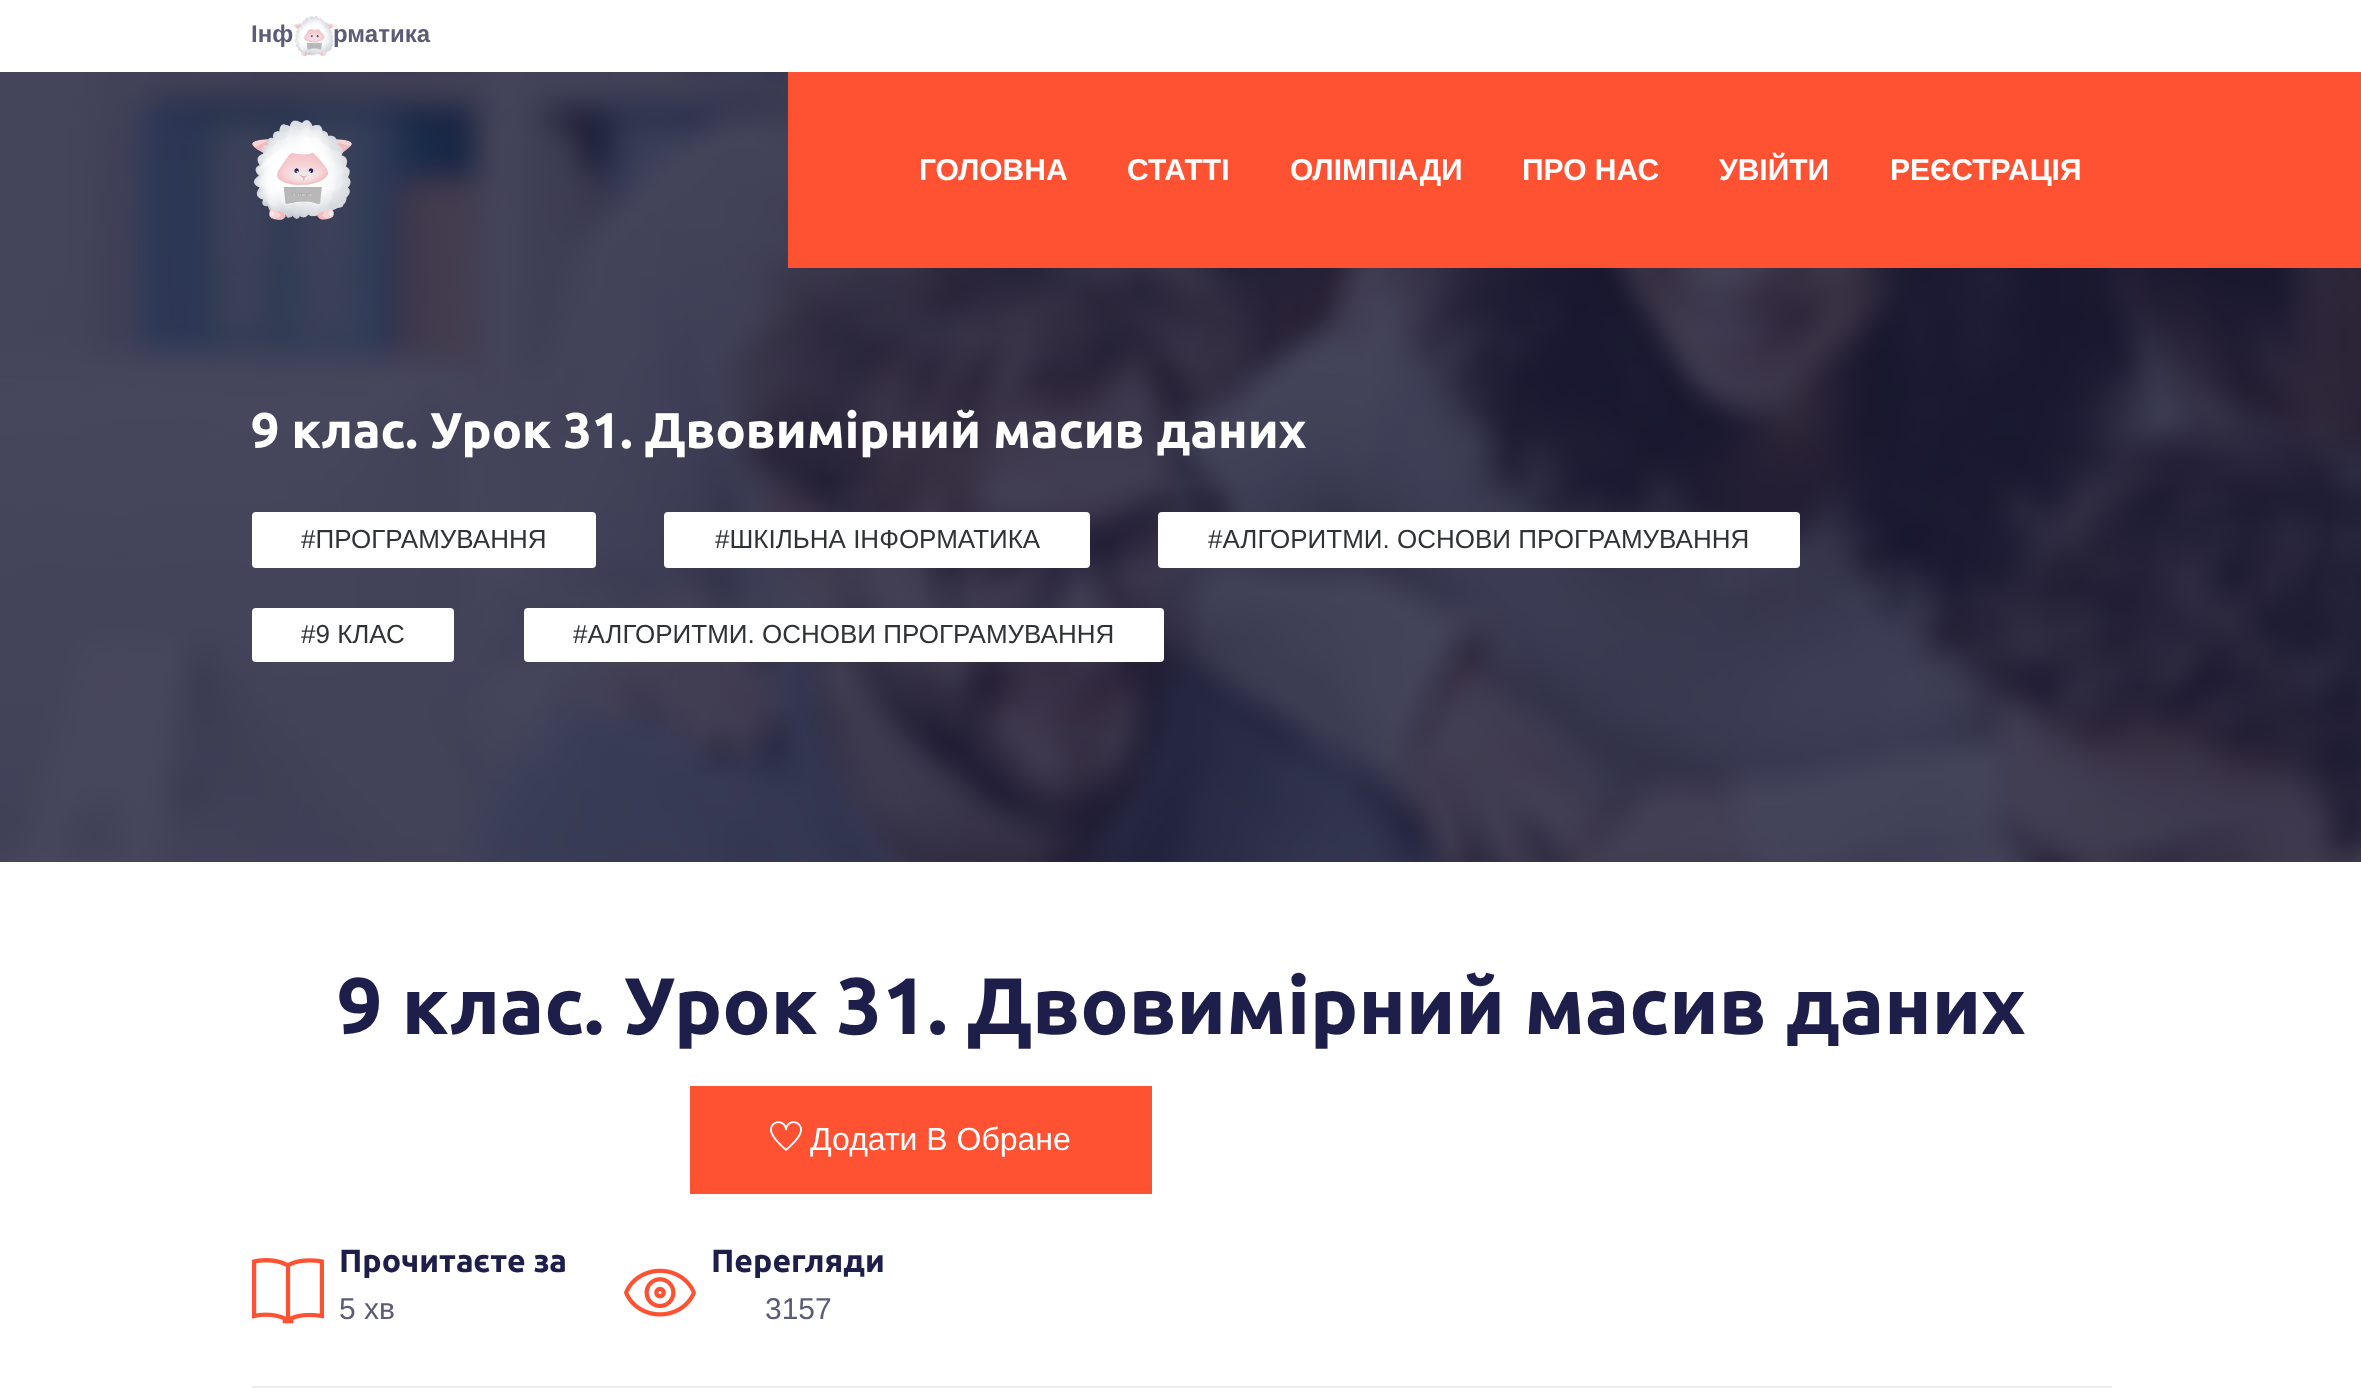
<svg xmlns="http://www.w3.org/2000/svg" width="2361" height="1397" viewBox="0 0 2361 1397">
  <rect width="100%" height="100%" fill="rgb(255,255,255)"/>
  <text x="251" y="42" font-family="Liberation Sans" font-size="24" font-weight="bold" fill="rgb(92,92,119)">Інф</text>
  <image x="294" y="16" width="40" height="40" href="pic1.png"/>
  <text x="333" y="42" font-family="Liberation Sans" font-size="24" font-weight="bold" fill="rgb(92,92,119)">рматика</text>
  <image x="0" y="72" width="2361" height="790" href="pic3.png"/>
  <rect x="788" y="72" width="1573" height="196" fill="rgb(255,82,51)"/>
  <image x="252" y="120" width="100" height="100" href="pic2.png"/>
  <g font-family="Liberation Sans" font-size="30" font-weight="bold" fill="rgb(255,255,255)">
    <text x="919" y="180">ГОЛОВНА</text>
    <text x="1127" y="180">СТАТТІ</text>
    <text x="1290" y="180">ОЛІМПІАДИ</text>
    <text x="1522" y="180">ПРО НАС</text>
    <text x="1719" y="180">УВІЙТИ</text>
    <text x="1890" y="180">РЕЄСТРАЦІЯ</text>
  </g>
  <text x="251" y="448" font-family="Ubuntu" font-size="50" font-weight="bold" fill="rgb(255,255,255)">9 клас. Урок 31. Двовимірний масив даних</text>
  <rect x="252" y="512" width="344" height="56" rx="4" fill="rgb(255,255,255)"/>
  <text x="301" y="548" font-family="Liberation Sans" font-size="26" fill="rgb(48,51,53)">#ПРОГРАМУВАННЯ</text>
  <rect x="664" y="512" width="426" height="56" rx="4" fill="rgb(255,255,255)"/>
  <text x="715" y="548" font-family="Liberation Sans" font-size="26" fill="rgb(48,51,53)">#ШКІЛЬНА ІНФОРМАТИКА</text>
  <rect x="1158" y="512" width="642" height="56" rx="4" fill="rgb(255,255,255)"/>
  <text x="1208" y="548" font-family="Liberation Sans" font-size="26" fill="rgb(48,51,53)">#АЛГОРИТМИ. ОСНОВИ ПРОГРАМУВАННЯ</text>
  <rect x="252" y="608" width="202" height="54" rx="4" fill="rgb(255,255,255)"/>
  <text x="301" y="643" font-family="Liberation Sans" font-size="26" fill="rgb(48,51,53)">#9 КЛАС</text>
  <rect x="524" y="608" width="640" height="54" rx="4" fill="rgb(255,255,255)"/>
  <text x="573" y="643" font-family="Liberation Sans" font-size="26" fill="rgb(48,51,53)">#АЛГОРИТМИ. ОСНОВИ ПРОГРАМУВАННЯ</text>
  <text x="337" y="1034" font-family="Ubuntu" font-size="80" font-weight="bold" fill="rgb(30,30,75)">9 клас. Урок 31. Двовимірний масив даних</text>
  <rect x="690" y="1086" width="462" height="108" fill="rgb(255,82,51)"/>
  <image x="770" y="1121" width="32" height="30" href="pic4.png"/>
  <text x="810" y="1150" font-family="Liberation Sans" font-size="32" fill="rgb(255,255,255)">Додати В Обране</text>
  <image x="252" y="1258" width="72" height="66" href="pic5.png"/>
  <text x="339" y="1272" font-family="Ubuntu" font-size="32" font-weight="bold" fill="rgb(30,30,75)">Прочитаєте за</text>
  <text x="339" y="1319" font-family="Liberation Sans" font-size="30" fill="rgb(92,92,119)">5 хв</text>
  <image x="624" y="1268" width="72" height="49" href="pic6.png"/>
  <text x="711" y="1272" font-family="Ubuntu" font-size="32" font-weight="bold" fill="rgb(30,30,75)">Перегляди</text>
  <text x="765" y="1319" font-family="Liberation Sans" font-size="30" fill="rgb(92,92,119)">3157</text>
  <rect x="252" y="1386" width="1860" height="2" fill="rgb(237,237,241)"/>
</svg>
